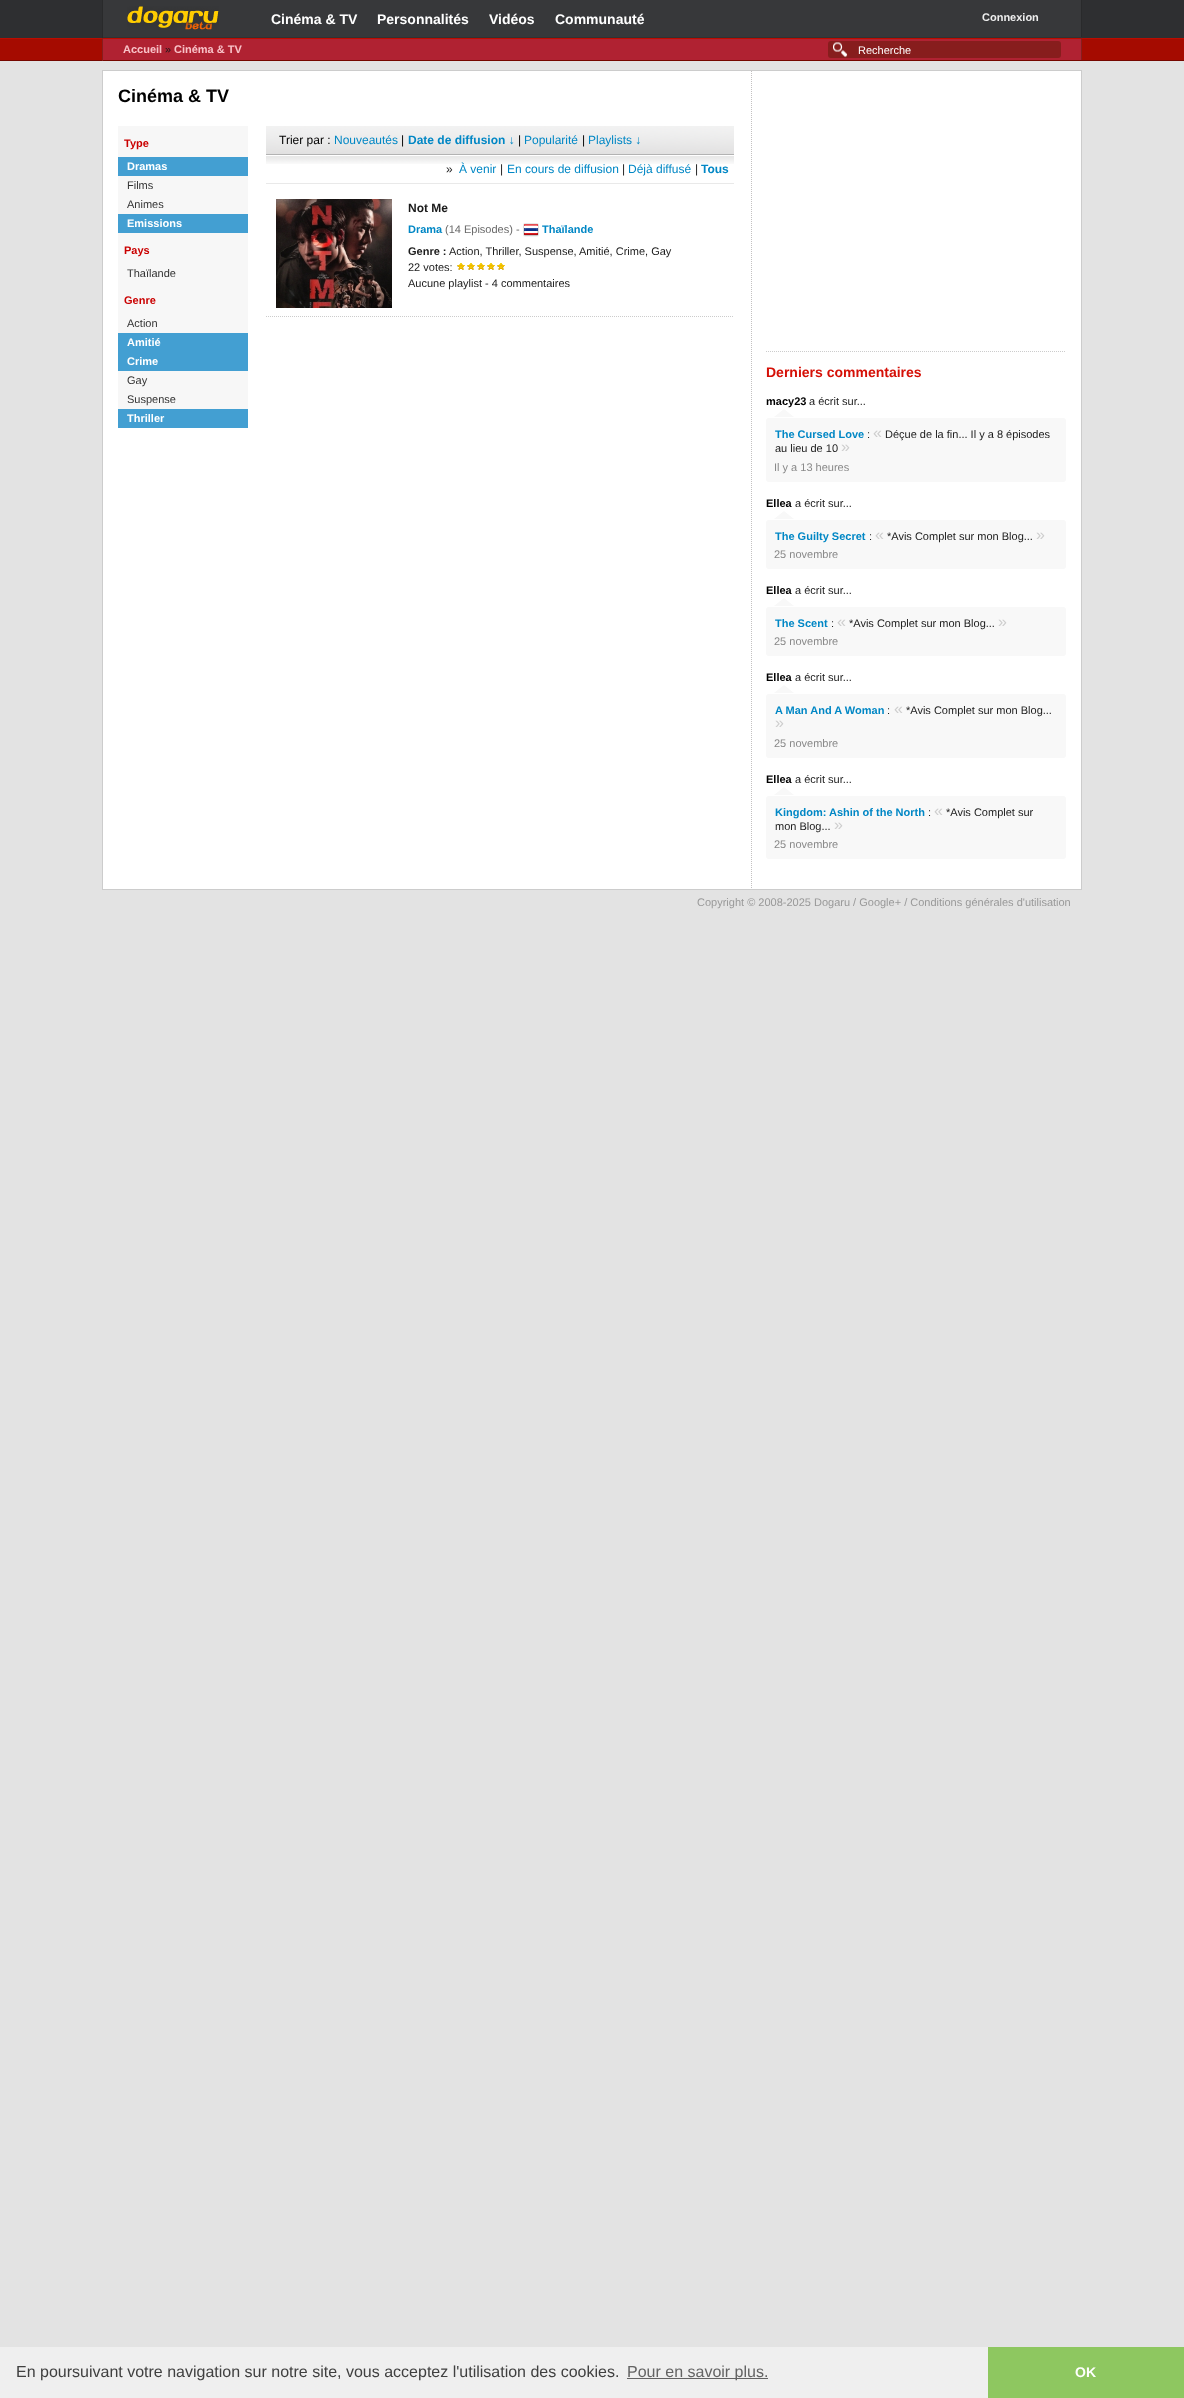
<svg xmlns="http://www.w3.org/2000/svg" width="1184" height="2398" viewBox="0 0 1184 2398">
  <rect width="100%" height="100%" fill="rgb(227,227,227)"/>
  <image x="0" y="0" width="1184" height="61" href="pic1.png"/>
  <rect x="103" y="0" width="978" height="37" fill="rgb(55,56,58)"/>
  <rect x="1081" y="0" width="1" height="38" fill="rgb(41,42,43)"/>
  <rect x="102" y="37" width="980" height="1" fill="rgb(49,50,51)"/>
  <rect x="102" y="0" width="1" height="38" fill="rgb(41,42,43)"/>
  <image x="127" y="6" width="92" height="24" href="pic2.png"/>
  <g font-family="Liberation Sans" font-size="14" font-weight="bold" fill="rgb(255,255,255)">
    <text x="271" y="24">Cinéma &amp; TV</text>
    <text x="377" y="24">Personnalités</text>
    <text x="489" y="24">Vidéos</text>
    <text x="555" y="24">Communauté</text>
  </g>
  <text x="982" y="21" font-family="Liberation Sans" font-size="11" font-weight="bold" fill="rgb(238,238,238)">Connexion</text>
  <rect x="103" y="39" width="978" height="21" fill="rgb(176,34,50)"/>
  <rect x="1081" y="38" width="1" height="23" fill="rgb(135,29,29)"/>
  <rect x="1081" y="60" width="1" height="1" fill="rgb(118,7,0)"/>
  <rect x="102" y="38" width="1" height="23" fill="rgb(135,29,29)"/>
  <text x="123" y="53" font-family="Liberation Sans" font-size="11" font-weight="bold" fill="rgb(249,194,200)">Accueil</text>
  <text x="165" y="53" font-family="Liberation Sans" font-size="11" fill="rgb(27,27,27)">»</text>
  <text x="174" y="53" font-family="Liberation Sans" font-size="11" font-weight="bold" fill="rgb(249,194,200)">Cinéma &amp; TV</text>
  <rect x="828" y="41" width="233" height="17" rx="3" fill="rgb(135,29,29)"/>
  <image x="833" y="42" width="15" height="16" href="pic3.png"/>
  <text x="858" y="54" font-family="Liberation Sans" font-size="11" fill="rgb(255,255,255)">Recherche</text>
  <rect x="103" y="71" width="978" height="818" fill="rgb(255,255,255)"/>
  <image x="751" y="71" width="1" height="818" href="pic4.png"/>
  <rect x="102.5" y="70.5" width="979" height="819" fill="none" stroke="rgb(204,204,204)"/>
  <text x="118" y="102" font-family="Liberation Sans" font-size="18" font-weight="bold" fill="rgb(0,0,0)">Cinéma &amp; TV</text>
  <rect x="118" y="126" width="130" height="31" fill="rgb(247,247,247)"/>
  <text x="124" y="147" font-family="Liberation Sans" font-size="11" font-weight="bold" fill="rgb(202,0,0)">Type</text>
  <rect x="118" y="157" width="130" height="19" fill="rgb(67,159,210)"/>
  <text x="127" y="170" font-family="Liberation Sans" font-size="11" font-weight="bold" fill="rgb(255,255,255)">Dramas</text>
  <rect x="118" y="176" width="130" height="38" fill="rgb(247,247,247)"/>
  <g font-family="Liberation Sans" font-size="11" fill="rgb(51,51,51)">
    <text>
      <tspan x="127" y="189">Films</tspan>
      <tspan x="127" y="208">Animes</tspan>
    </text>
  </g>
  <rect x="118" y="214" width="130" height="19" fill="rgb(67,159,210)"/>
  <text x="127" y="227" font-family="Liberation Sans" font-size="11" font-weight="bold" fill="rgb(255,255,255)">Emissions</text>
  <rect x="118" y="233" width="130" height="31" fill="rgb(247,247,247)"/>
  <text x="124" y="254" font-family="Liberation Sans" font-size="11" font-weight="bold" fill="rgb(202,0,0)">Pays</text>
  <rect x="118" y="264" width="130" height="69" fill="rgb(247,247,247)"/>
  <text x="127" y="277" font-family="Liberation Sans" font-size="11" fill="rgb(51,51,51)">Thaïlande</text>
  <text x="124" y="304" font-family="Liberation Sans" font-size="11" font-weight="bold" fill="rgb(202,0,0)">Genre</text>
  <text x="127" y="327" font-family="Liberation Sans" font-size="11" fill="rgb(51,51,51)">Action</text>
  <rect x="118" y="333" width="130" height="38" fill="rgb(67,159,210)"/>
  <g font-family="Liberation Sans" font-size="11" font-weight="bold" fill="rgb(255,255,255)">
    <text>
      <tspan x="127" y="346">Amitié</tspan>
      <tspan x="127" y="365">Crime</tspan>
    </text>
  </g>
  <rect x="118" y="371" width="130" height="38" fill="rgb(247,247,247)"/>
  <g font-family="Liberation Sans" font-size="11" fill="rgb(51,51,51)">
    <text>
      <tspan x="127" y="384">Gay</tspan>
      <tspan x="127" y="403">Suspense</tspan>
    </text>
  </g>
  <rect x="118" y="409" width="130" height="19" fill="rgb(67,159,210)"/>
  <text x="127" y="422" font-family="Liberation Sans" font-size="11" font-weight="bold" fill="rgb(255,255,255)">Thriller</text>
  <image x="266" y="126" width="468" height="28" href="pic5.png"/>
  <rect x="266" y="154" width="468" height="1" fill="rgb(179,179,179)"/>
  <text x="279" y="144" font-family="Liberation Sans" font-size="12" fill="rgb(0,0,0)">Trier par :</text>
  <text x="334" y="144" font-family="Liberation Sans" font-size="12" fill="rgb(1,135,197)">Nouveautés</text>
  <text x="401" y="144" font-family="Liberation Sans" font-size="12" fill="rgb(0,0,0)">|</text>
  <text x="408" y="144" font-family="Liberation Sans" font-size="12" font-weight="bold" fill="rgb(1,135,197)">Date de diffusion ↓</text>
  <text x="518" y="144" font-family="Liberation Sans" font-size="12" fill="rgb(0,0,0)">|</text>
  <text x="524" y="144" font-family="Liberation Sans" font-size="12" fill="rgb(1,135,197)">Popularité</text>
  <text x="582" y="144" font-family="Liberation Sans" font-size="12" fill="rgb(0,0,0)">|</text>
  <text x="588" y="144" font-family="Liberation Sans" font-size="12" fill="rgb(1,135,197)">Playlists ↓</text>
  <image x="266" y="156" width="468" height="8" href="pic6.png"/>
  <rect x="266" y="183" width="468" height="1" fill="rgb(233,233,233)"/>
  <text x="446" y="173" font-family="Liberation Sans" font-size="12" fill="rgb(27,27,27)">»</text>
  <text x="459" y="173" font-family="Liberation Sans" font-size="12" fill="rgb(1,135,197)">À venir</text>
  <text x="500" y="173" font-family="Liberation Sans" font-size="12" fill="rgb(27,27,27)">|</text>
  <text x="507" y="173" font-family="Liberation Sans" font-size="12" fill="rgb(1,135,197)">En cours de diffusion</text>
  <text x="622" y="173" font-family="Liberation Sans" font-size="12" fill="rgb(27,27,27)">|</text>
  <text x="628" y="173" font-family="Liberation Sans" font-size="12" fill="rgb(1,135,197)">Déjà diffusé</text>
  <text x="695" y="173" font-family="Liberation Sans" font-size="12" fill="rgb(27,27,27)">|</text>
  <text x="701" y="173" font-family="Liberation Sans" font-size="12" font-weight="bold" fill="rgb(1,135,197)">Tous</text>
  <path d="M266 316.5H734" fill="none" stroke="rgb(204,204,204)" stroke-dasharray="1 1"/>
  <image x="276" y="199" width="116" height="109" href="pic7.png"/>
  <text x="408" y="212" font-family="Liberation Sans" font-size="12" font-weight="bold" fill="rgb(27,27,27)">Not Me</text>
  <text x="408" y="233" font-family="Liberation Sans" font-size="11" font-weight="bold" fill="rgb(1,135,197)">Drama</text>
  <text x="445" y="233" font-family="Liberation Sans" font-size="11" fill="rgb(105,105,105)">(14 Episodes) -</text>
  <image x="523" y="223" width="16" height="14" href="pic8.png"/>
  <text x="542" y="233" font-family="Liberation Sans" font-size="11" font-weight="bold" fill="rgb(1,135,197)">Thaïlande</text>
  <text x="408" y="255" font-family="Liberation Sans" font-size="11" font-weight="bold" fill="rgb(27,27,27)">Genre :</text>
  <g font-family="Liberation Sans" font-size="11" fill="rgb(27,27,27)">
    <text x="449" y="255">Action, Thriller, Suspense, Amitié, Crime, Gay</text>
    <text x="408" y="271">22 votes:</text>
  </g>
  <image x="457" y="263" width="48" height="7" href="pic9.png"/>
  <text x="408" y="287" font-family="Liberation Sans" font-size="11" fill="rgb(27,27,27)">Aucune playlist - 4 commentaires</text>
  <path d="M766 351.5H1066" fill="none" stroke="rgb(204,204,204)" stroke-dasharray="1 1"/>
  <text x="766" y="377" font-family="Liberation Sans" font-size="14" font-weight="bold" fill="rgb(213,16,7)">Derniers commentaires</text>
  <text x="766" y="405" font-family="Liberation Sans" font-size="11" font-weight="bold" fill="rgb(0,0,0)">macy23</text>
  <text x="809" y="405" font-family="Liberation Sans" font-size="11" fill="rgb(27,27,27)">a écrit sur...</text>
  <rect x="766" y="418" width="300" height="64" rx="3" fill="rgb(248,248,248)"/>
  <path d="M794 417H774L784 409Z" fill="rgb(248,248,248)"/>
  <text x="775" y="438" font-family="Liberation Sans" font-size="11" font-weight="bold" fill="rgb(1,135,197)">The Cursed Love</text>
  <text x="867" y="438" font-family="Liberation Sans" font-size="11" fill="rgb(27,27,27)">:</text>
  <text x="873" y="438" font-family="Liberation Sans" font-size="16" fill="rgb(206,206,206)">«</text>
  <g font-family="Liberation Sans" font-size="11" fill="rgb(27,27,27)">
    <text x="885" y="438">Déçue de la fin... Il y a 8 épisodes</text>
    <text x="775" y="452">au lieu de 10</text>
  </g>
  <text x="841" y="452" font-family="Liberation Sans" font-size="16" fill="rgb(206,206,206)">»</text>
  <text x="774" y="471" font-family="Liberation Sans" font-size="11" fill="rgb(137,137,137)">Il y a 13 heures</text>
  <text x="766" y="507" font-family="Liberation Sans" font-size="11" font-weight="bold" fill="rgb(0,0,0)">Ellea</text>
  <text x="795" y="507" font-family="Liberation Sans" font-size="11" fill="rgb(27,27,27)">a écrit sur...</text>
  <rect x="766" y="520" width="300" height="49" rx="3" fill="rgb(248,248,248)"/>
  <path d="M794 519H774L784 511Z" fill="rgb(248,248,248)"/>
  <text x="775" y="540" font-family="Liberation Sans" font-size="11" font-weight="bold" fill="rgb(1,135,197)">The Guilty Secret</text>
  <text x="869" y="540" font-family="Liberation Sans" font-size="11" fill="rgb(27,27,27)">:</text>
  <text x="875" y="540" font-family="Liberation Sans" font-size="16" fill="rgb(206,206,206)">«</text>
  <text x="887" y="540" font-family="Liberation Sans" font-size="11" fill="rgb(27,27,27)">*Avis Complet sur mon Blog...</text>
  <text x="1036" y="540" font-family="Liberation Sans" font-size="16" fill="rgb(206,206,206)">»</text>
  <text x="774" y="558" font-family="Liberation Sans" font-size="11" fill="rgb(137,137,137)">25 novembre</text>
  <text x="766" y="594" font-family="Liberation Sans" font-size="11" font-weight="bold" fill="rgb(0,0,0)">Ellea</text>
  <text x="795" y="594" font-family="Liberation Sans" font-size="11" fill="rgb(27,27,27)">a écrit sur...</text>
  <rect x="766" y="607" width="300" height="49" rx="3" fill="rgb(248,248,248)"/>
  <path d="M794 606H774L784 598Z" fill="rgb(248,248,248)"/>
  <text x="775" y="627" font-family="Liberation Sans" font-size="11" font-weight="bold" fill="rgb(1,135,197)">The Scent</text>
  <text x="831" y="627" font-family="Liberation Sans" font-size="11" fill="rgb(27,27,27)">:</text>
  <text x="837" y="627" font-family="Liberation Sans" font-size="16" fill="rgb(206,206,206)">«</text>
  <text x="849" y="627" font-family="Liberation Sans" font-size="11" fill="rgb(27,27,27)">*Avis Complet sur mon Blog...</text>
  <text x="998" y="627" font-family="Liberation Sans" font-size="16" fill="rgb(206,206,206)">»</text>
  <text x="774" y="645" font-family="Liberation Sans" font-size="11" fill="rgb(137,137,137)">25 novembre</text>
  <text x="766" y="681" font-family="Liberation Sans" font-size="11" font-weight="bold" fill="rgb(0,0,0)">Ellea</text>
  <text x="795" y="681" font-family="Liberation Sans" font-size="11" fill="rgb(27,27,27)">a écrit sur...</text>
  <rect x="766" y="694" width="300" height="64" rx="3" fill="rgb(248,248,248)"/>
  <path d="M794 693H774L784 685Z" fill="rgb(248,248,248)"/>
  <text x="775" y="714" font-family="Liberation Sans" font-size="11" font-weight="bold" fill="rgb(1,135,197)">A Man And A Woman</text>
  <text x="887" y="714" font-family="Liberation Sans" font-size="11" fill="rgb(27,27,27)">:</text>
  <text x="894" y="714" font-family="Liberation Sans" font-size="16" fill="rgb(206,206,206)">«</text>
  <text x="906" y="714" font-family="Liberation Sans" font-size="11" fill="rgb(27,27,27)">*Avis Complet sur mon Blog...</text>
  <text x="775" y="728" font-family="Liberation Sans" font-size="16" fill="rgb(206,206,206)">»</text>
  <text x="774" y="747" font-family="Liberation Sans" font-size="11" fill="rgb(137,137,137)">25 novembre</text>
  <text x="766" y="783" font-family="Liberation Sans" font-size="11" font-weight="bold" fill="rgb(0,0,0)">Ellea</text>
  <text x="795" y="783" font-family="Liberation Sans" font-size="11" fill="rgb(27,27,27)">a écrit sur...</text>
  <rect x="766" y="796" width="300" height="63" rx="3" fill="rgb(248,248,248)"/>
  <path d="M794 795H774L784 787Z" fill="rgb(248,248,248)"/>
  <text x="775" y="816" font-family="Liberation Sans" font-size="11" font-weight="bold" fill="rgb(1,135,197)">Kingdom: Ashin of the North</text>
  <text x="928" y="816" font-family="Liberation Sans" font-size="11" fill="rgb(27,27,27)">:</text>
  <text x="934" y="816" font-family="Liberation Sans" font-size="16" fill="rgb(206,206,206)">«</text>
  <g font-family="Liberation Sans" font-size="11" fill="rgb(27,27,27)">
    <text x="946" y="816">*Avis Complet sur</text>
    <text x="775" y="830">mon Blog...</text>
  </g>
  <text x="834" y="830" font-family="Liberation Sans" font-size="16" fill="rgb(206,206,206)">»</text>
  <text x="774" y="848" font-family="Liberation Sans" font-size="11" fill="rgb(137,137,137)">25 novembre</text>
  <text x="697" y="906" font-family="Liberation Sans" font-size="11" fill="rgb(153,153,153)">Copyright © 2008-2025 Dogaru / Google+ / Conditions générales d'utilisation</text>
  <rect x="0" y="2347" width="988" height="51" fill="rgb(239,239,239)"/>
  <text x="16" y="2377" font-family="Liberation Sans" font-size="16" fill="rgb(64,64,64)">En poursuivant votre navigation sur notre site, vous acceptez l'utilisation des cookies.</text>
  <rect x="627" y="2378" width="141" height="1" fill="rgb(99,99,99)"/>
  <text x="627" y="2377" font-family="Liberation Sans" font-size="16" fill="rgb(99,99,99)">Pour en savoir plus.</text>
  <rect x="988" y="2347" width="196" height="51" fill="rgb(142,199,96)"/>
  <text x="1075" y="2377" font-family="Liberation Sans" font-size="14" font-weight="bold" fill="rgb(255,255,255)">OK</text>
</svg>
